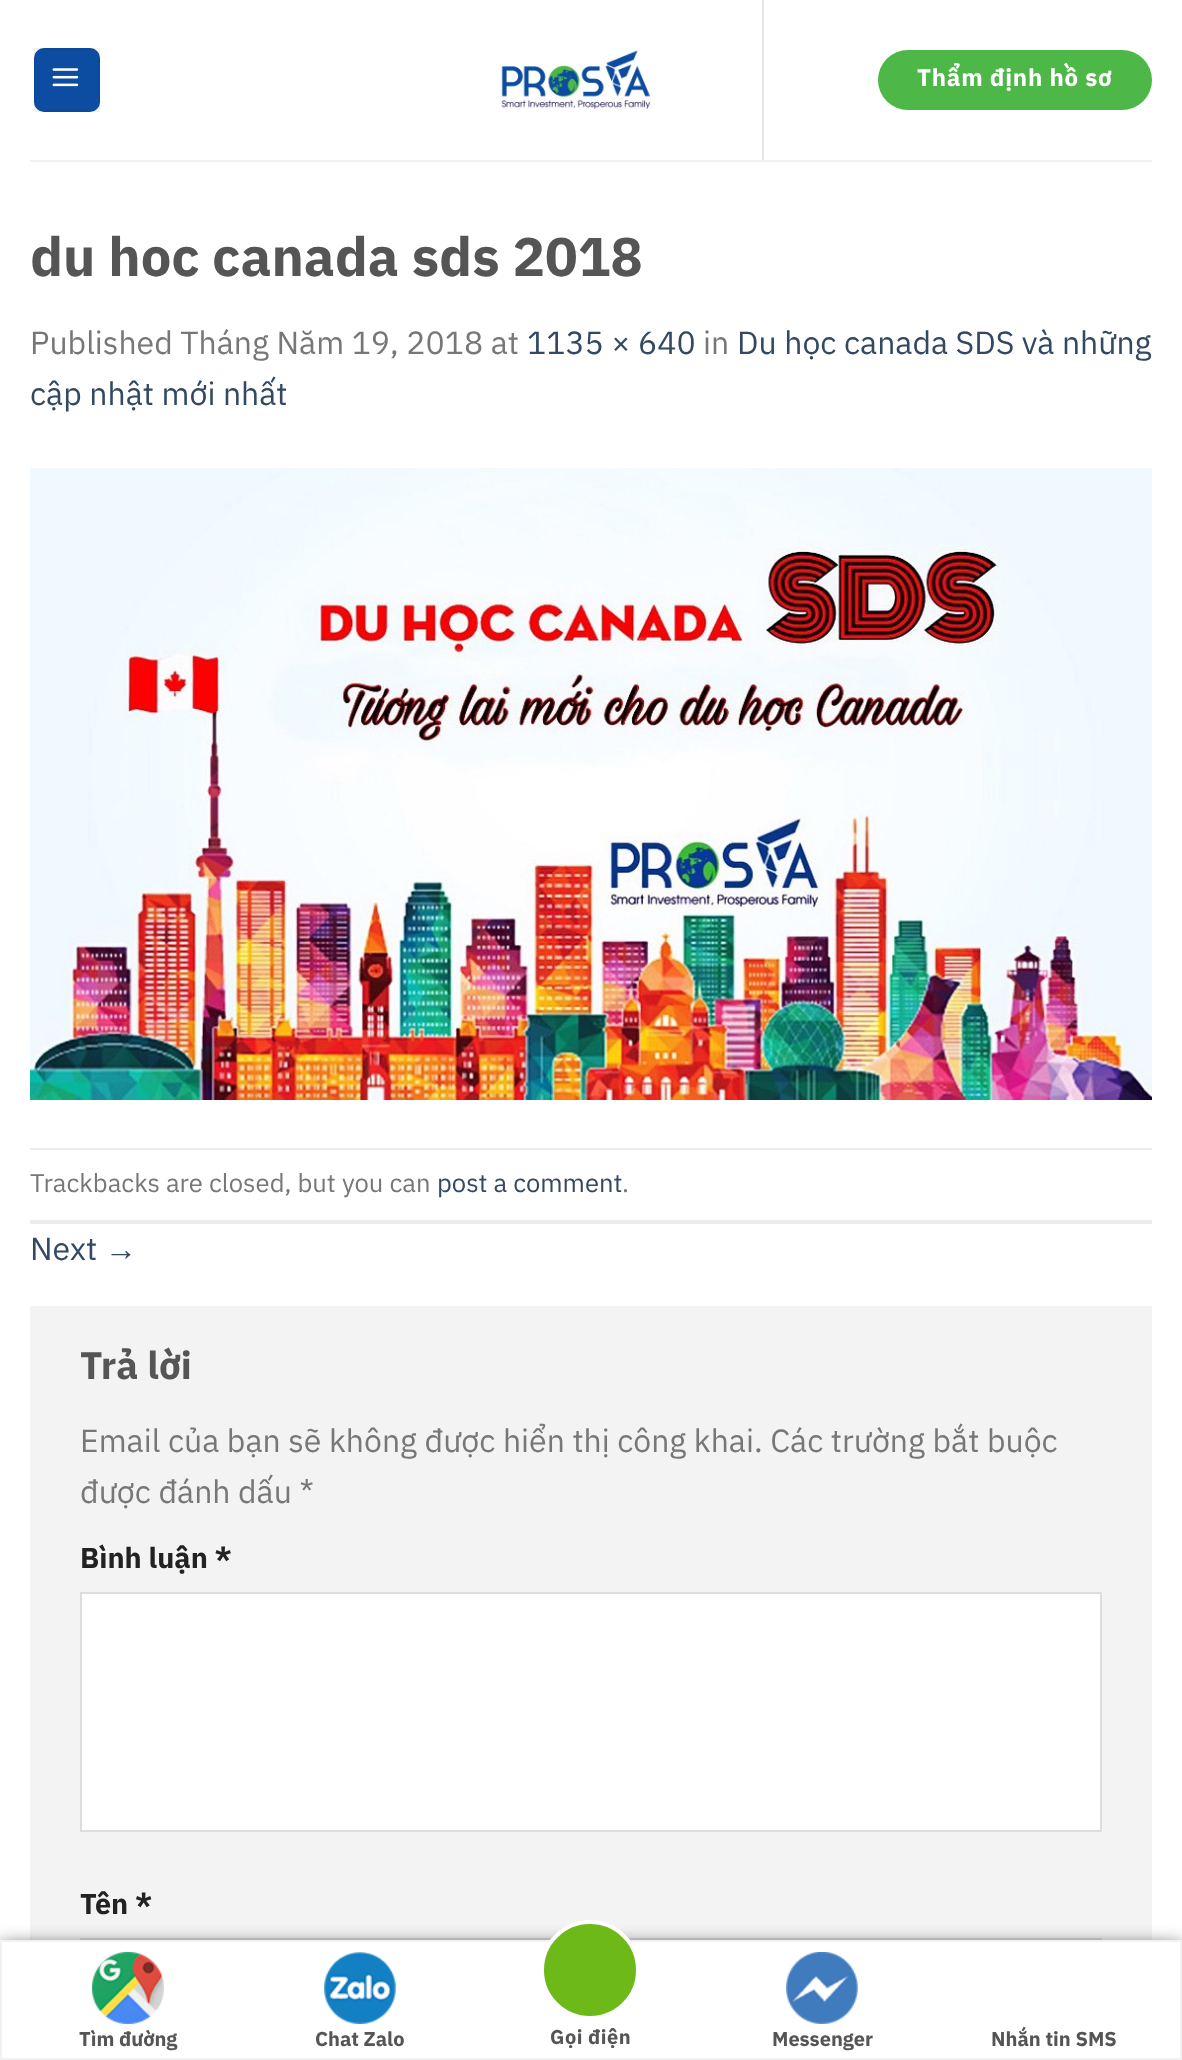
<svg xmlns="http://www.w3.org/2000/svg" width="1182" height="2060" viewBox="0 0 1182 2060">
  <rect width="100%" height="100%" fill="rgb(255,255,255)"/>
  <rect x="34" y="48" width="66" height="64" rx="10" fill="rgb(12,77,162)"/>
  <rect x="35" y="49" width="64" height="62" fill="none" stroke="rgba(0,0,0,0.05)" stroke-width="2"/>
  <image x="52" y="68" width="27" height="19" href="pic1.png"/>
  <rect x="762" y="0" width="2" height="160" fill="rgb(230,230,230)"/>
  <image x="500" y="50" width="151" height="60" href="pic2.png"/>
  <rect x="878" y="50" width="274" height="60" rx="30" fill="rgb(77,184,72)"/>
  <text x="917" y="86" font-family="IBM Plex Sans" font-size="24" font-weight="bold" letter-spacing="0.75" fill="rgb(255,255,255)">Thẩm định hồ sơ</text>
  <rect x="30" y="160" width="1122" height="2" fill="rgb(241,241,241)"/>
  <text x="30" y="276" font-family="IBM Plex Sans" font-size="54.4" font-weight="bold" fill="rgb(85,85,85)">du hoc canada sds 2018</text>
  <text x="30" y="354" font-family="IBM Plex Sans" font-size="32" fill="rgb(119,119,119)">Published Tháng Năm 19, 2018 at</text>
  <text x="527" y="354" font-family="IBM Plex Sans" font-size="32" fill="rgb(51,72,98)">1135 × 640</text>
  <text x="703" y="354" font-family="IBM Plex Sans" font-size="32" fill="rgb(119,119,119)">in</text>
  <g font-family="IBM Plex Sans" font-size="32" fill="rgb(51,72,98)">
    <text x="737" y="354">Du học canada SDS và những</text>
    <text x="30" y="405">cập nhật mới nhất</text>
  </g>
  <image x="30" y="468" width="1122" height="632" href="pic3.png"/>
  <rect x="30" y="1148" width="1122" height="2" fill="rgb(236,236,236)"/>
  <rect x="30" y="1220" width="1122" height="4" fill="rgb(236,236,236)"/>
  <text x="30" y="1192" font-family="IBM Plex Sans" font-size="25.6" fill="rgb(119,119,119)">Trackbacks are closed, but you can</text>
  <text x="437" y="1192" font-family="IBM Plex Sans" font-size="25.6" fill="rgb(51,72,98)">post a comment</text>
  <text x="622" y="1192" font-family="IBM Plex Sans" font-size="25.6" fill="rgb(119,119,119)">.</text>
  <text x="30" y="1260" font-family="IBM Plex Sans" font-size="32" fill="rgb(51,72,98)">Next</text>
  <text x="105" y="1260" font-family="Liberation Serif" font-size="32" fill="rgb(51,72,98)">→</text>
  <rect x="30" y="1306" width="1122" height="634" fill="rgb(243,243,243)"/>
  <text x="80" y="1379" font-family="IBM Plex Sans" font-size="38.5" font-weight="bold" fill="rgb(85,85,85)">Trả lời</text>
  <g font-family="IBM Plex Sans" font-size="32" fill="rgb(119,119,119)">
    <text>
      <tspan x="80" y="1452">Email của bạn sẽ không được hiển thị công khai. Các trường bắt buộc</tspan>
      <tspan x="80" y="1503">được đánh dấu *</tspan>
    </text>
  </g>
  <text x="80" y="1568" font-family="IBM Plex Sans" font-size="28.75" font-weight="bold" fill="rgb(34,34,34)">Bình luận *</text>
  <rect x="81" y="1593" width="1020" height="238" fill="rgb(255,255,255)" stroke="rgb(221,221,221)" stroke-width="2"/>
  <text x="80" y="1914" font-family="IBM Plex Sans" font-size="28.75" font-weight="bold" fill="rgb(34,34,34)">Tên *</text>
  <rect x="81" y="1939" width="1020" height="78" fill="none" stroke="rgb(221,221,221)" stroke-width="2"/>
  <rect x="0" y="1948" width="1182" height="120" fill="rgb(0,0,0)" filter="blur(10px)"/>
  <rect x="1" y="1941" width="1180" height="118" fill="rgb(255,255,255)" stroke="rgb(242,242,242)" stroke-width="2"/>
  <image x="92" y="1952" width="72" height="72" href="pic4.png"/>
  <text x="79" y="2046" font-family="IBM Plex Sans" font-size="20" font-weight="bold" fill="rgb(85,85,85)">Tìm đường</text>
  <image x="324" y="1952" width="72" height="72" href="pic5.png"/>
  <text x="315" y="2046" font-family="IBM Plex Sans" font-size="20" font-weight="bold" fill="rgb(85,85,85)">Chat Zalo</text>
  <circle cx="590" cy="1970" r="48" fill="rgb(108,185,23)" stroke="rgb(255,255,255)" stroke-width="4"/>
  <text x="550" y="2044" font-family="IBM Plex Sans" font-size="20" font-weight="bold" letter-spacing="0.5" fill="rgb(85,85,85)">Gọi điện</text>
  <image x="786" y="1952" width="72" height="72" href="pic6.png"/>
  <g font-family="IBM Plex Sans" font-size="20" font-weight="bold" fill="rgb(85,85,85)">
    <text x="772" y="2046">Messenger</text>
    <text x="991" y="2046">Nhắn tin SMS</text>
  </g>
</svg>
